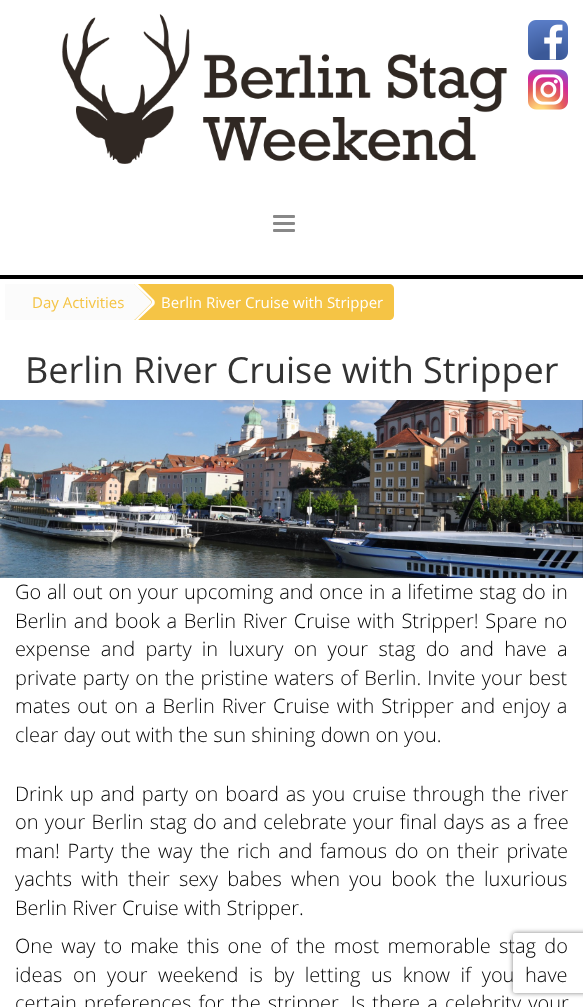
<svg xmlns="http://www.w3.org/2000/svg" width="583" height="1007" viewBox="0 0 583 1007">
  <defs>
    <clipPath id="clip1"><path d="M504 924H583V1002H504ZM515 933H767C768 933 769 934 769 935V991C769 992 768 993 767 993H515C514 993 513 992 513 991V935C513 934 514 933 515 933Z" clip-rule="evenodd"/></clipPath>
  </defs>
  <rect width="100%" height="100%" fill="rgb(255,255,255)"/>
  <rect x="0" y="275" width="583" height="4" fill="rgb(0,0,0)"/>
  <image x="62" y="14" width="445" height="150" href="pic1.png"/>
  <image x="528" y="20" width="40" height="40" href="pic2.png"/>
  <image x="528" y="69" width="40" height="41" href="pic3.png"/>
  <rect x="273" y="215" width="22" height="3" rx="1" fill="rgb(136,136,136)"/>
  <rect x="273" y="222" width="22" height="3" rx="1" fill="rgb(136,136,136)"/>
  <rect x="273" y="229" width="22" height="3" rx="1" fill="rgb(136,136,136)"/>
  <rect x="5" y="284" width="129" height="36" fill="rgb(251,251,251)"/>
  <text x="32" y="308" font-family="Open Sans" font-size="15" fill="rgb(245,196,69)">Day Activities</text>
  <path d="M134 284H389C392 284 394 286 394 289V315C394 318 392 320 389 320H134Z" fill="rgb(245,196,69)"/>
  <path d="M136 282L133 285L134 284L151 300C152 301 152 303 151 304L135 320L136 322L154 305C155 304 155 301 154 300Z" fill="rgb(255,255,255)"/>
  <path d="M134.5 284L150.5 300.5C151.5 301.5 151.5 303 150.5 304L134.5 320C124.5 310.5 124.5 294 134.5 284Z" fill="rgb(251,251,251)"/>
  <text x="161" y="308" font-family="Open Sans" font-size="15" fill="rgb(255,255,255)">Berlin River Cruise with Stripper</text>
  <text x="25" y="383" font-family="Open Sans" font-size="36" fill="rgb(51,51,51)">Berlin River Cruise with Stripper</text>
  <image x="0" y="400" width="583" height="178" href="pic4.png"/>
  <g font-family="Open Sans" font-size="20" font-weight="300" fill="rgb(0,0,0)">
    <text>
      <tspan x="15" y="599" word-spacing="0.6">Go all out on your upcoming and once in a lifetime stag do in</tspan>
      <tspan x="15" y="628" word-spacing="1.5">Berlin and book a Berlin River Cruise with Stripper! Spare no</tspan>
      <tspan x="15" y="656" word-spacing="5.1">expense and party in luxury on your stag do and have a</tspan>
      <tspan x="15" y="685" word-spacing="1">private party on the pristine waters of Berlin. Invite your best</tspan>
      <tspan x="15" y="713" word-spacing="1.8">mates out on a Berlin River Cruise with Stripper and enjoy a</tspan>
      <tspan x="15" y="742">clear day out with the sun shining down on you.</tspan>
    </text>
    <text>
      <tspan x="15" y="801" word-spacing="1.75">Drink up and party on board as you cruise through the river</tspan>
      <tspan x="15" y="829" word-spacing="1">on your Berlin stag do and celebrate your final days as a free</tspan>
      <tspan x="15" y="858" word-spacing="2.4">man! Party the way the rich and famous do on their private</tspan>
      <tspan x="15" y="886" word-spacing="4">yachts with their sexy babes when you book the luxurious</tspan>
      <tspan x="15" y="915">Berlin River Cruise with Stripper.</tspan>
      <tspan x="15" y="953" word-spacing="3">One way to make this one of the most memorable stag do</tspan>
      <tspan x="15" y="982" word-spacing="5.4">ideas on your weekend is by letting us know if you have</tspan>
      <tspan x="15" y="1010" word-spacing="2">certain preferences for the stripper. Is there a celebrity your</tspan>
    </text>
  </g>
  <g clip-path="url(#clip1)">
    <rect x="513" y="933" width="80" height="60" rx="2" fill="rgb(128,128,128)" filter="blur(2.5px)"/>
  </g>
</svg>
